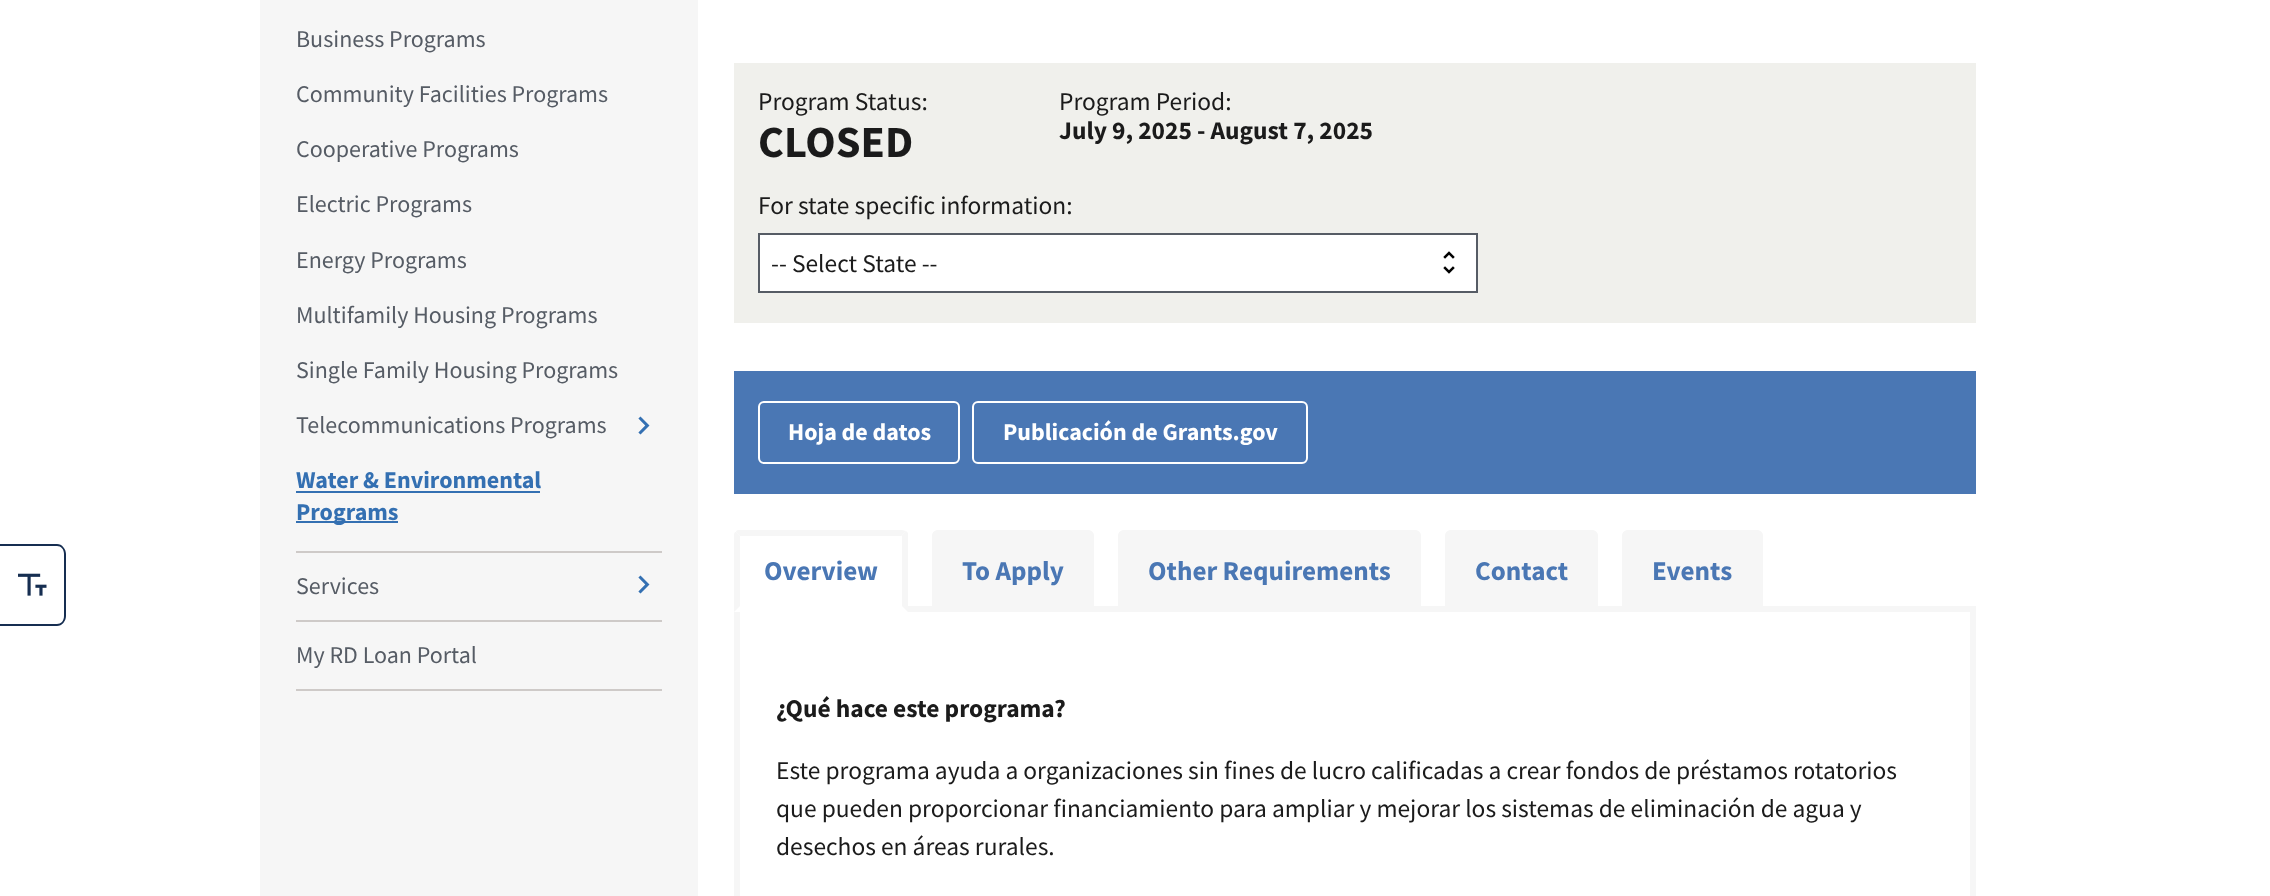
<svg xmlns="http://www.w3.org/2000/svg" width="2270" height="896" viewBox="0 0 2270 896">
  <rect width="100%" height="100%" fill="rgb(255,255,255)"/>
  <path d="M0 544H57C62 544 66 549 66 554V616C66 621 62 626 57 626H0ZM0 546H57C61 546 64 549 64 554V616C64 621 61 624 57 624H0Z" fill="rgb(22,46,81)" fill-rule="evenodd"/>
  <image x="18" y="573" width="29" height="23" href="pic1.png"/>
  <rect x="260" y="0" width="438" height="896" fill="rgb(246,246,246)"/>
  <rect x="296" y="551" width="366" height="2" fill="rgb(206,202,200)"/>
  <g font-family="Source Sans Pro" font-size="24" fill="rgb(86,92,101)">
    <text x="296" y="47">Business Programs</text>
    <text x="296" y="102">Community Facilities Programs</text>
    <text x="296" y="157">Cooperative Programs</text>
    <text x="296" y="212">Electric Programs</text>
    <text x="296" y="268">Energy Programs</text>
    <text x="296" y="323">Multifamily Housing Programs</text>
    <text x="296" y="378">Single Family Housing Programs</text>
    <text x="296" y="433">Telecommunications Programs</text>
  </g>
  <image x="638" y="416" width="12" height="19" href="pic2.png"/>
  <text x="296" y="488" font-family="Source Sans Pro" font-size="24" font-weight="bold" fill="rgb(52,112,178)">Water &amp; Environmental</text>
  <rect x="296" y="491" width="244" height="2" fill="rgb(52,112,178)"/>
  <rect x="296" y="521" width="102" height="2" fill="rgb(52,112,178)"/>
  <text x="296" y="520" font-family="Source Sans Pro" font-size="24" font-weight="bold" fill="rgb(52,112,178)">Programs</text>
  <rect x="296" y="620" width="366" height="2" fill="rgb(206,202,200)"/>
  <text x="296" y="594" font-family="Source Sans Pro" font-size="24" fill="rgb(86,92,101)">Services</text>
  <image x="638" y="575" width="12" height="19" href="pic3.png"/>
  <rect x="296" y="689" width="366" height="2" fill="rgb(206,202,200)"/>
  <text x="296" y="663" font-family="Source Sans Pro" font-size="24" fill="rgb(86,92,101)">My RD Loan Portal</text>
  <rect x="734" y="63" width="1242" height="260" fill="rgb(240,240,236)"/>
  <text x="758" y="110" font-family="Source Sans Pro" font-size="25.45" fill="rgb(27,27,27)">Program Status:</text>
  <text x="758" y="157" font-family="Source Sans Pro" font-size="44.5" font-weight="bold" fill="rgb(27,27,27)">CLOSED</text>
  <text x="1059" y="110" font-family="Source Sans Pro" font-size="25.45" fill="rgb(27,27,27)">Program Period:</text>
  <text x="1059" y="139" font-family="Source Sans Pro" font-size="25.45" font-weight="bold" fill="rgb(27,27,27)">July 9, 2025 - August 7, 2025</text>
  <text x="758" y="214" font-family="Source Sans Pro" font-size="25.45" fill="rgb(27,27,27)">For state specific information:</text>
  <rect x="760" y="235" width="716" height="56" fill="rgb(255,255,255)"/>
  <image x="1443" y="251" width="12" height="23" href="pic4.png"/>
  <rect x="759" y="234" width="718" height="58" fill="none" stroke="rgb(86,92,101)" stroke-width="2"/>
  <text x="771" y="272" font-family="Source Sans Pro" font-size="25.45" fill="rgb(27,27,27)">-- Select State --</text>
  <rect x="734" y="371" width="1242" height="123" fill="rgb(74,119,180)"/>
  <rect x="759" y="402" width="200" height="61" rx="5" fill="none" stroke="rgb(255,255,255)" stroke-width="2"/>
  <text x="788" y="440" font-family="Source Sans Pro" font-size="24" font-weight="bold" fill="rgb(255,255,255)">Hoja de datos</text>
  <rect x="973" y="402" width="334" height="61" rx="5" fill="none" stroke="rgb(255,255,255)" stroke-width="2"/>
  <text x="1003" y="440" font-family="Source Sans Pro" font-size="24" font-weight="bold" fill="rgb(255,255,255)">Publicación de Grants.gov</text>
  <path d="M938 530H1088C1091.5 530 1094 532.5 1094 536V612H932V536C932 532.5 934.5 530 938 530Z" fill="rgb(246,246,246)"/>
  <path d="M1124 530H1415C1418.5 530 1421 532.5 1421 536V612H1118V536C1118 532.5 1120.5 530 1124 530Z" fill="rgb(246,246,246)"/>
  <path d="M1451 530H1592C1595.5 530 1598 532.5 1598 536V612H1445V536C1445 532.5 1447.5 530 1451 530Z" fill="rgb(246,246,246)"/>
  <path d="M1628 530H1757C1760.5 530 1763 532.5 1763 536V612H1622V536C1622 532.5 1624.5 530 1628 530Z" fill="rgb(246,246,246)"/>
  <rect x="737" y="609" width="1236" height="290" fill="none" stroke="rgb(246,246,246)" stroke-width="6"/>
  <path d="M740 530H902C905.5 530 908 532.5 908 536V612H734V536C734 532.5 736.5 530 740 530Z" fill="rgb(255,255,255)"/>
  <path d="M740 530C738 530 736 530 736 532L740 536H901L906 531L902 530Z" fill="rgb(246,246,246)"/>
  <path d="M906 531L908 533V612L902 606V536H901Z" fill="rgb(246,246,246)"/>
  <path d="M740 536L736 532C734 532 734 534 734 536V612L740 606Z" fill="rgb(246,246,246)"/>
  <g font-family="Source Sans Pro" font-size="27.1" font-weight="bold" fill="rgb(74,119,180)">
    <text x="764" y="580">Overview</text>
    <text x="962" y="580">To Apply</text>
    <text x="1148" y="580">Other Requirements</text>
    <text x="1475" y="580">Contact</text>
    <text x="1652" y="580">Events</text>
  </g>
  <text x="776" y="717" font-family="Source Sans Pro" font-size="25.45" font-weight="bold" fill="rgb(27,27,27)">¿Qué hace este programa?</text>
  <g font-family="Source Sans Pro" font-size="25.45" fill="rgb(27,27,27)">
    <text>
      <tspan x="776" y="779">Este programa ayuda a organizaciones sin fines de lucro calificadas a crear fondos de préstamos rotatorios</tspan>
      <tspan x="776" y="817">que pueden proporcionar financiamiento para ampliar y mejorar los sistemas de eliminación de agua y</tspan>
      <tspan x="776" y="855">desechos en áreas rurales.</tspan>
    </text>
  </g>
</svg>
